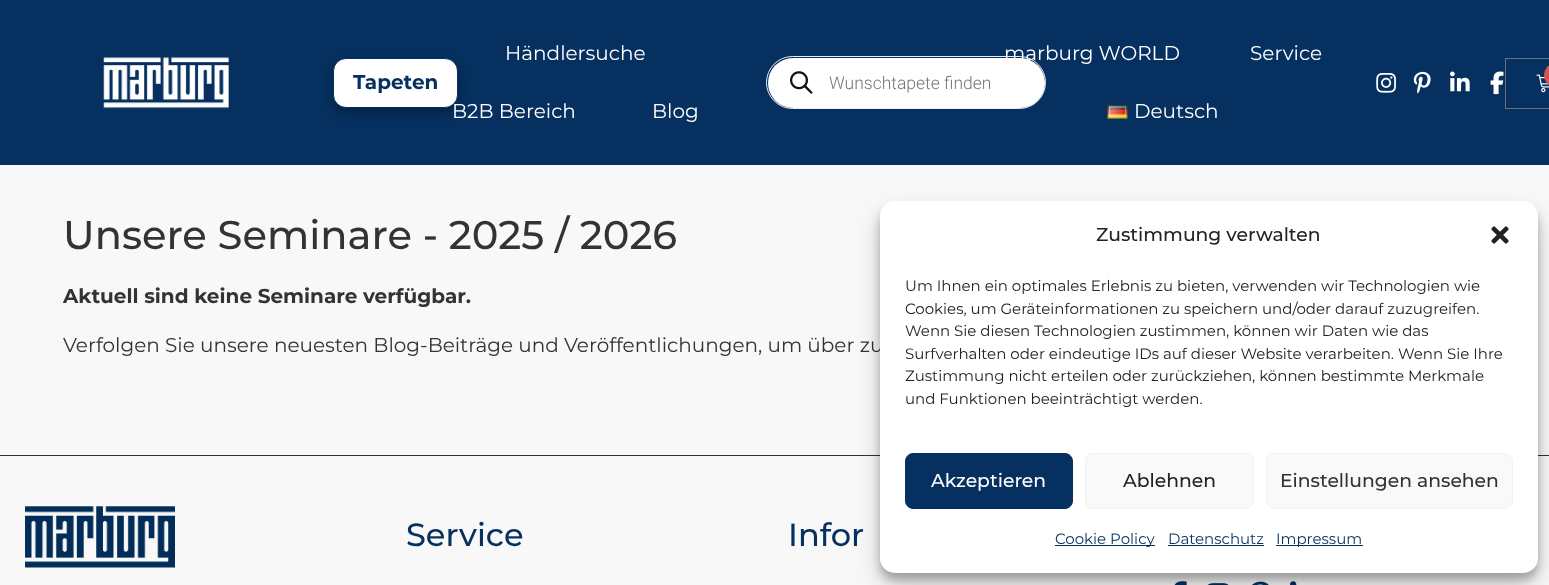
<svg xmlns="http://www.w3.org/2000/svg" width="1549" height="585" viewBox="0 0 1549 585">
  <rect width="100%" height="100%" fill="rgb(248,248,248)"/>
  <rect x="0" y="0" width="1549" height="165" fill="rgb(6,48,95)"/>
  <image x="103" y="57" width="126" height="52" href="pic1.png"/>
  <rect x="333" y="63" width="125" height="50" rx="13" fill="rgba(0,0,0,0.3)" filter="blur(5px)"/>
  <rect x="333.5" y="58.5" width="124" height="49" rx="12.5" fill="rgb(255,255,255)" stroke="rgb(6,48,95)"/>
  <text x="353" y="89" font-family="Montserrat" font-size="20" font-weight="bold" fill="rgb(6,48,95)">Tapeten</text>
  <g font-family="Montserrat" font-size="20" fill="rgb(255,255,255)">
    <text x="505" y="60">Händlersuche</text>
    <text x="452" y="118">B2B Bereich</text>
    <text x="652" y="118">Blog</text>
  </g>
  <rect x="766.5" y="56.5" width="279" height="52" rx="26" fill="none" stroke="rgb(238,238,238)"/>
  <rect x="768" y="58" width="277" height="50" rx="25" fill="rgb(255,255,255)"/>
  <image x="790" y="71" width="23" height="23" href="pic2.png"/>
  <text x="829" y="89" font-family="Roboto" font-size="17.5" font-weight="300" fill="rgb(119,119,119)">Wunschtapete finden</text>
  <g font-family="Montserrat" font-size="20" fill="rgb(255,255,255)">
    <text x="1004" y="60">marburg WORLD</text>
    <text x="1250" y="60">Service</text>
  </g>
  <image x="1107" y="105" width="21" height="14" href="pic3.png"/>
  <text x="1134" y="118" font-family="Montserrat" font-size="20" fill="rgb(255,255,255)">Deutsch</text>
  <image x="1376" y="73" width="20" height="20" href="pic4.png"/>
  <image x="1413" y="71" width="18" height="23" href="pic5.png"/>
  <image x="1450" y="71" width="20" height="21" href="pic6.png"/>
  <image x="1490" y="71" width="14" height="24" href="pic7.png"/>
  <rect x="1505.5" y="58.5" width="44" height="50" fill="none" stroke="rgb(105,114,125)"/>
  <image x="1536" y="74" width="13" height="19" href="pic8.png"/>
  <rect x="1544" y="65" width="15" height="20" rx="10" fill="rgb(217,83,79)"/>
  <text x="63" y="249" font-family="Montserrat" font-size="40" font-weight="500" fill="rgb(51,51,51)">Unsere Seminare - 2025 / 2026</text>
  <text x="63" y="303" font-family="Montserrat" font-size="20" font-weight="bold" fill="rgb(51,51,51)">Aktuell sind keine Seminare verfügbar.</text>
  <text x="63" y="352" font-family="Montserrat" font-size="20" fill="rgb(51,51,51)">Verfolgen Sie unsere neuesten Blog-Beiträge und Veröffentlichungen, um über zu</text>
  <rect x="0" y="455" width="1549" height="1" fill="rgb(51,51,51)"/>
  <image x="1174" y="581" width="13" height="4" href="pic11.png"/>
  <image x="1207" y="583" width="22" height="2" href="pic12.png"/>
  <image x="1252" y="581" width="17" height="4" href="pic13.png"/>
  <image x="1290" y="581" width="7" height="4" href="pic14.png"/>
  <rect x="880" y="209" width="658" height="371" rx="15" fill="rgba(0,0,0,0.23)" filter="blur(4px)"/>
  <rect x="880" y="214" width="658" height="371" rx="15" fill="rgba(0,0,0,0.19)" filter="blur(12.5px)"/>
  <rect x="880" y="201" width="658" height="372" rx="15" fill="rgb(255,255,255)"/>
  <text x="1096" y="241" font-family="Montserrat" font-size="18.75" font-weight="500" fill="rgb(34,34,34)">Zustimmung verwalten</text>
  <image x="1491" y="226" width="18" height="18" href="pic9.png"/>
  <g font-family="Montserrat" font-size="15" fill="rgb(34,34,34)">
    <text>
      <tspan x="905" y="291">Um Ihnen ein optimales Erlebnis zu bieten, verwenden wir Technologien wie</tspan>
      <tspan x="905" y="314">Cookies, um Geräteinformationen zu speichern und/oder darauf zuzugreifen.</tspan>
      <tspan x="905" y="336">Wenn Sie diesen Technologien zustimmen, können wir Daten wie das</tspan>
      <tspan x="905" y="359">Surfverhalten oder eindeutige IDs auf dieser Website verarbeiten. Wenn Sie Ihre</tspan>
      <tspan x="905" y="381">Zustimmung nicht erteilen oder zurückziehen, können bestimmte Merkmale</tspan>
      <tspan x="905" y="404">und Funktionen beeinträchtigt werden.</tspan>
    </text>
  </g>
  <rect x="905.5" y="453.5" width="167" height="55" rx="7.5" fill="rgb(6,48,95)" stroke="rgb(6,48,95)"/>
  <text x="931" y="487" font-family="Montserrat" font-size="18.75" font-weight="500" fill="rgb(255,255,255)">Akzeptieren</text>
  <rect x="1085.5" y="453.5" width="168" height="55" rx="7.5" fill="rgb(249,249,249)" stroke="rgb(242,242,242)"/>
  <text x="1123" y="487" font-family="Montserrat" font-size="18.75" font-weight="500" fill="rgb(34,34,34)">Ablehnen</text>
  <rect x="1266.5" y="453.5" width="246" height="55" rx="7.5" fill="rgb(249,249,249)" stroke="rgb(242,242,242)"/>
  <text x="1280" y="487" font-family="Montserrat" font-size="18.75" font-weight="500" fill="rgb(51,51,51)">Einstellungen ansehen</text>
  <rect x="1055" y="545" width="100" height="1" fill="rgb(6,48,95)"/>
  <g font-family="Montserrat" font-size="15" fill="rgb(6,48,95)">
    <text x="1055" y="544">Cookie Policy</text>
    <text x="1168" y="544">Datenschutz</text>
  </g>
  <rect x="1168" y="545" width="96" height="1" fill="rgb(6,48,95)"/>
  <rect x="1276" y="545" width="87" height="1" fill="rgb(6,48,95)"/>
  <text x="1276" y="544" font-family="Montserrat" font-size="15" fill="rgb(6,48,95)">Impressum</text>
  <image x="25" y="506" width="150" height="62" href="pic10.png"/>
  <g font-family="Montserrat" font-size="32" font-weight="500" fill="rgb(6,48,95)">
    <text x="406" y="546">Service</text>
    <text x="788" y="546">Infor</text>
  </g>
</svg>
